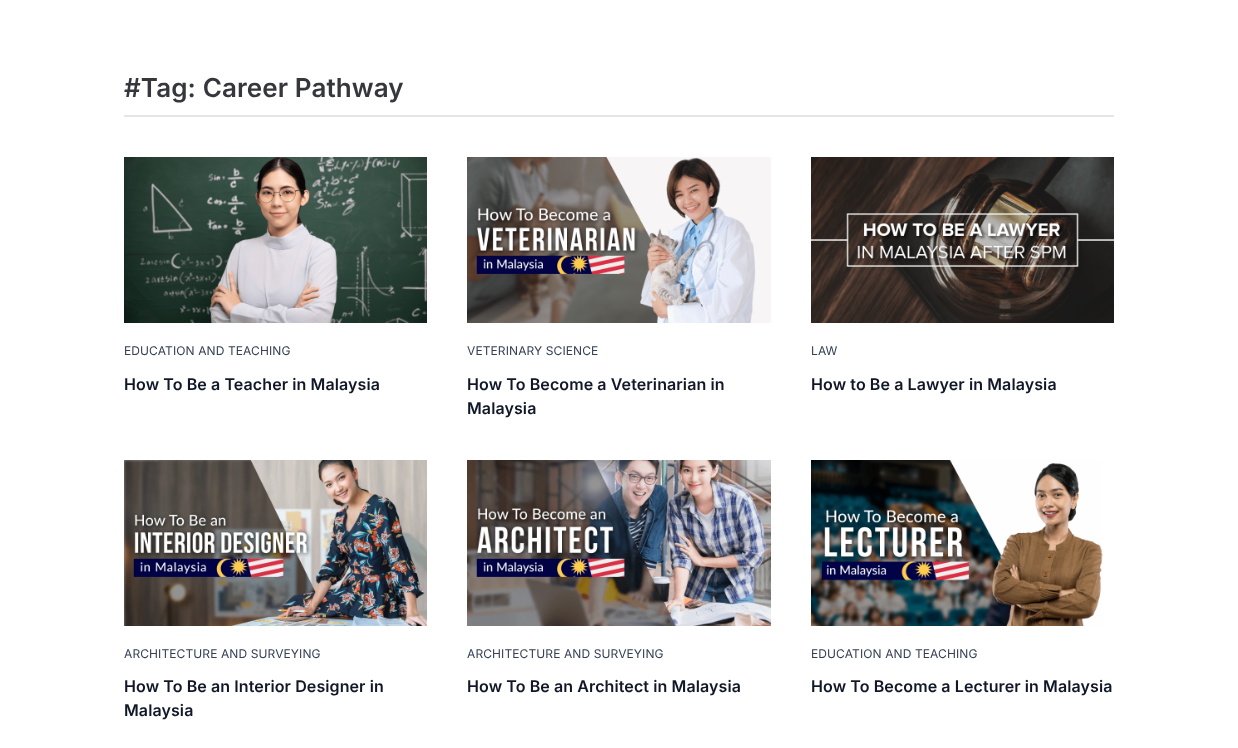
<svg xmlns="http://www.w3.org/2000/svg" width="1238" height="748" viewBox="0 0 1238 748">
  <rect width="100%" height="100%" fill="rgb(255,255,255)"/>
  <rect x="124" y="115" width="990" height="2" fill="rgb(229,229,229)"/>
  <text x="124" y="97" font-family="Inter" font-size="26" font-weight="600" letter-spacing="0.1" fill="rgb(54,55,61)">#Tag: Career Pathway</text>
  <image x="124" y="157" width="303" height="166" href="pic1.png"/>
  <text x="124" y="355" font-family="Inter" font-size="12" letter-spacing="0.1" fill="rgb(52,64,84)">EDUCATION AND TEACHING</text>
  <text x="124" y="390" font-family="Inter" font-size="16" font-weight="600" letter-spacing="0.1" fill="rgb(16,24,40)">How To Be a Teacher in Malaysia</text>
  <image x="467" y="157" width="304" height="166" href="pic2.png"/>
  <text x="467" y="355" font-family="Inter" font-size="12" letter-spacing="0.1" fill="rgb(52,64,84)">VETERINARY SCIENCE</text>
  <g font-family="Inter" font-size="16" font-weight="600" letter-spacing="0.1" fill="rgb(16,24,40)">
    <text>
      <tspan x="467" y="390">How To Become a Veterinarian in</tspan>
      <tspan x="467" y="414">Malaysia</tspan>
    </text>
  </g>
  <image x="811" y="157" width="303" height="166" href="pic3.png"/>
  <text x="811" y="355" font-family="Inter" font-size="12" letter-spacing="0.1" fill="rgb(52,64,84)">LAW</text>
  <text x="811" y="390" font-family="Inter" font-size="16" font-weight="600" letter-spacing="0.1" fill="rgb(16,24,40)">How to Be a Lawyer in Malaysia</text>
  <image x="124" y="460" width="303" height="166" href="pic4.png"/>
  <text x="124" y="658" font-family="Inter" font-size="12" letter-spacing="0.1" fill="rgb(52,64,84)">ARCHITECTURE AND SURVEYING</text>
  <g font-family="Inter" font-size="16" font-weight="600" letter-spacing="0.1" fill="rgb(16,24,40)">
    <text>
      <tspan x="124" y="692">How To Be an Interior Designer in</tspan>
      <tspan x="124" y="716">Malaysia</tspan>
    </text>
  </g>
  <image x="467" y="460" width="304" height="166" href="pic5.png"/>
  <text x="467" y="658" font-family="Inter" font-size="12" letter-spacing="0.1" fill="rgb(52,64,84)">ARCHITECTURE AND SURVEYING</text>
  <text x="467" y="692" font-family="Inter" font-size="16" font-weight="600" letter-spacing="0.1" fill="rgb(16,24,40)">How To Be an Architect in Malaysia</text>
  <image x="811" y="460" width="292" height="166" href="pic6.png"/>
  <text x="811" y="658" font-family="Inter" font-size="12" letter-spacing="0.1" fill="rgb(52,64,84)">EDUCATION AND TEACHING</text>
  <text x="811" y="692" font-family="Inter" font-size="16" font-weight="600" letter-spacing="0.1" fill="rgb(16,24,40)">How To Become a Lecturer in Malaysia</text>
</svg>
